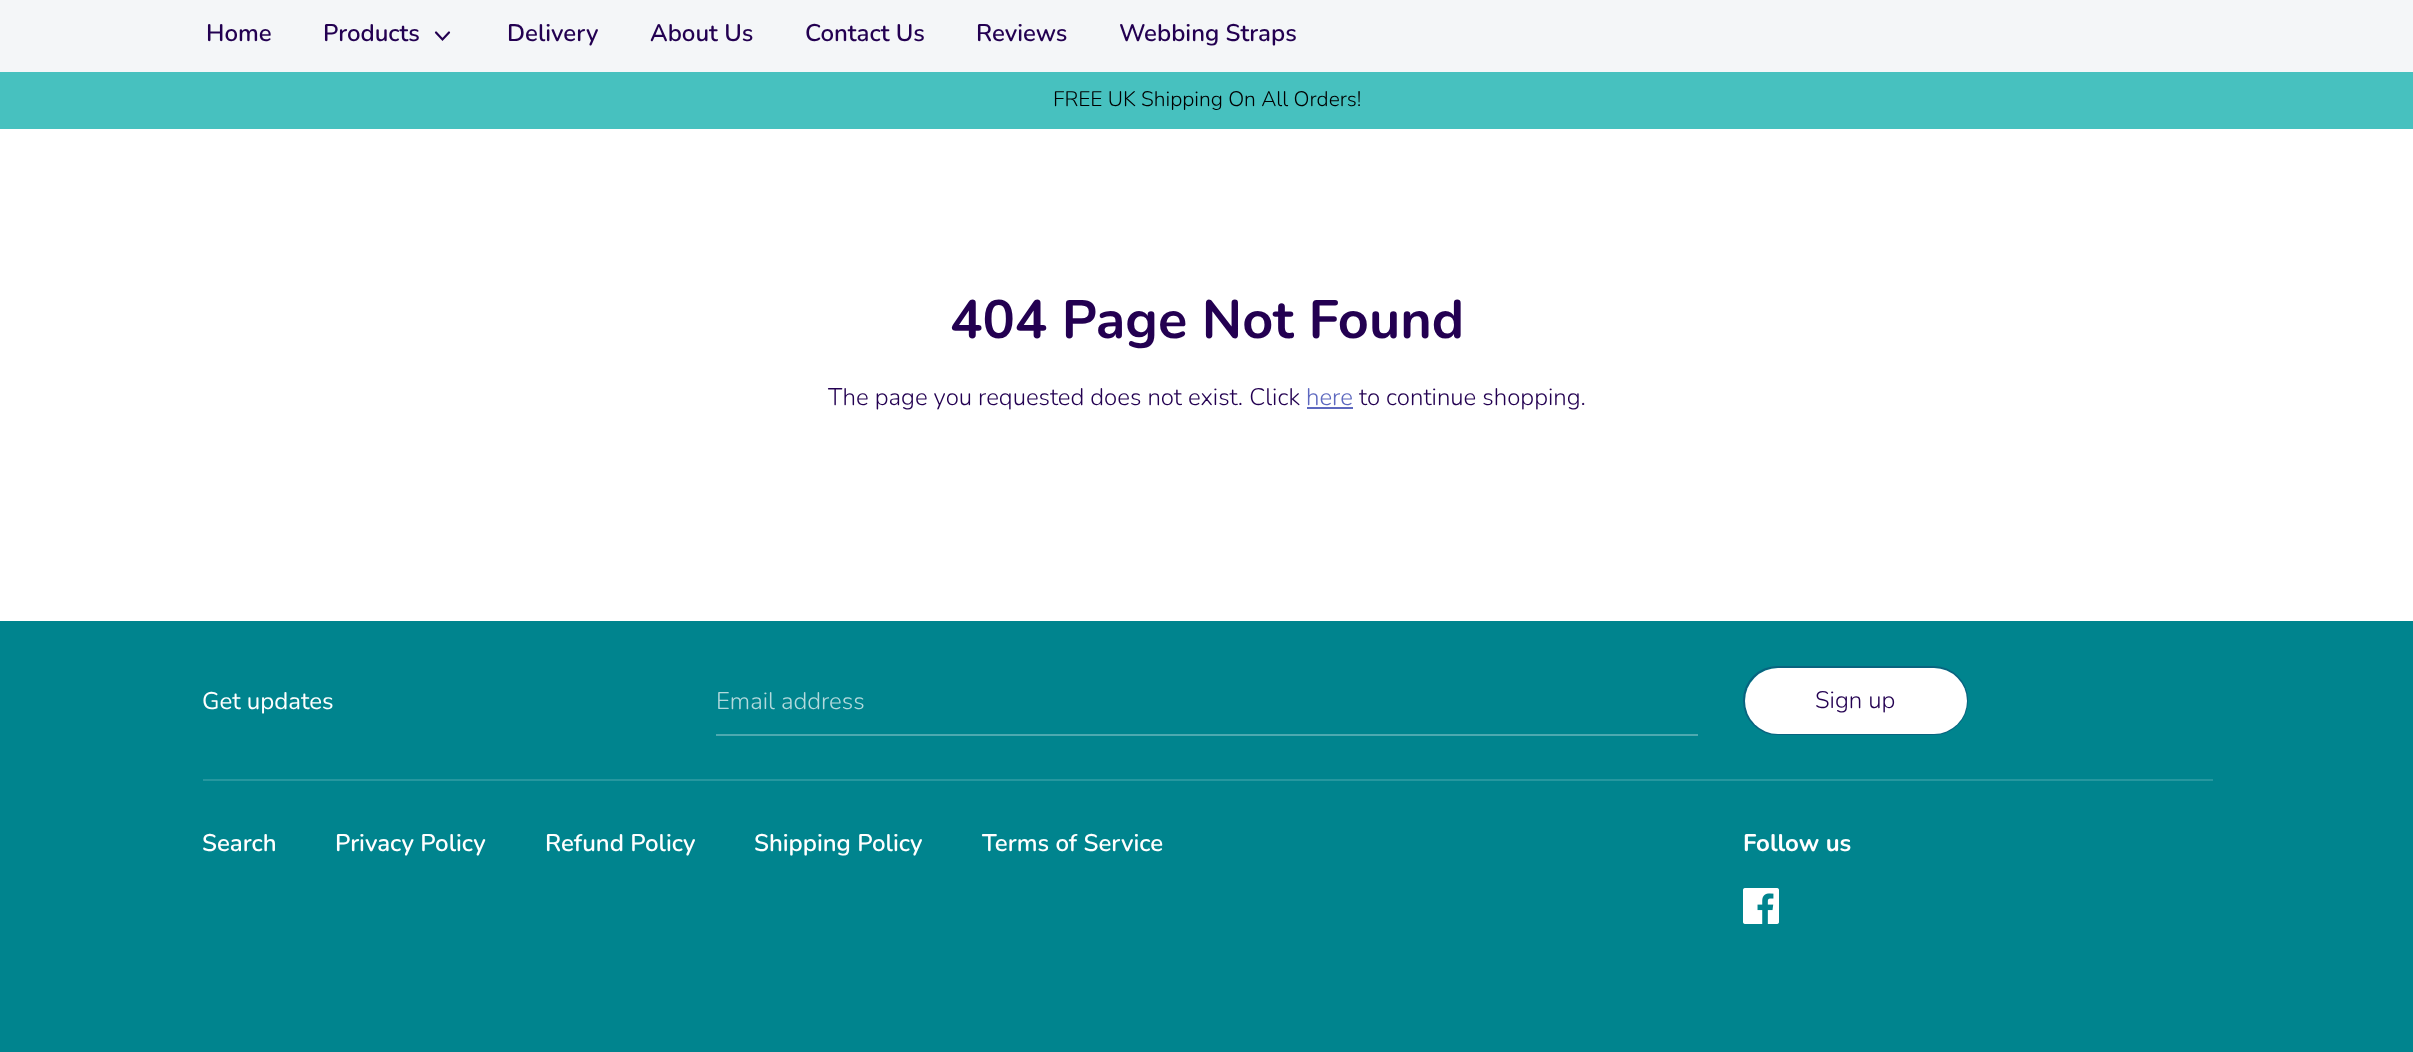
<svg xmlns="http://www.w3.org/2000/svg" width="2413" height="1052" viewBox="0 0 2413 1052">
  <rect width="100%" height="100%" fill="rgb(255,255,255)"/>
  <rect x="0" y="0" width="2413" height="72" fill="rgb(244,246,248)"/>
  <g font-family="Nunito" font-size="24" font-weight="600" fill="rgb(35,0,81)">
    <text x="206" y="41">Home</text>
    <text x="323" y="41">Products</text>
  </g>
  <path d="M436 32.5L442.5 39.5L449 32.5" fill="none" stroke="rgb(35,0,81)" stroke-width="2.2" stroke-linecap="round"/>
  <g font-family="Nunito" font-size="24" font-weight="600" fill="rgb(35,0,81)">
    <text x="507" y="41">Delivery</text>
    <text x="650" y="41">About Us</text>
    <text x="805" y="41">Contact Us</text>
    <text x="976" y="41">Reviews</text>
    <text x="1119" y="41">Webbing Straps</text>
  </g>
  <rect x="0" y="72" width="2413" height="57" fill="rgb(71,193,191)"/>
  <text x="1053" y="106" font-family="Nunito" font-size="21" font-weight="300" fill="rgb(0,0,0)">FREE UK Shipping On All Orders!</text>
  <text x="950" y="338" font-family="Nunito" font-size="54" font-weight="bold" fill="rgb(35,0,81)">404 Page Not Found</text>
  <text x="828" y="405" font-family="Nunito" font-size="24" font-weight="300" fill="rgb(35,0,81)">The page you requested does not exist. Click</text>
  <text x="1306" y="405" font-family="Nunito" font-size="24" font-weight="300" fill="rgb(93,104,191)">here</text>
  <rect x="1307" y="407" width="46" height="2" fill="rgb(93,104,191)"/>
  <text x="1359" y="405" font-family="Nunito" font-size="24" font-weight="300" fill="rgb(35,0,81)">to continue shopping.</text>
  <rect x="0" y="621" width="2413" height="431" fill="rgb(0,132,142)"/>
  <text x="202" y="709" font-family="Nunito" font-size="24" fill="rgb(255,255,255)">Get updates</text>
  <rect x="716" y="734" width="982" height="2" fill="rgb(77,169,176)"/>
  <text x="716" y="709" font-family="Nunito" font-size="24" font-weight="300" fill="rgb(179,218,221)">Email address</text>
  <rect x="1744" y="667" width="223" height="67" rx="33.5" fill="none" stroke="rgb(9,99,127)" stroke-width="2"/>
  <rect x="1745" y="668" width="222" height="66" rx="33" fill="rgb(255,255,255)"/>
  <text x="1815" y="708" font-family="Nunito" font-size="24" font-weight="300" fill="rgb(35,0,81)">Sign up</text>
  <rect x="203" y="779" width="2010" height="2" fill="rgb(38,151,159)"/>
  <g font-family="Nunito" font-size="24" font-weight="600" fill="rgb(255,255,255)">
    <text x="202" y="851">Search</text>
    <text x="335" y="851">Privacy Policy</text>
    <text x="545" y="851">Refund Policy</text>
    <text x="754" y="851">Shipping Policy</text>
    <text x="982" y="851">Terms of Service</text>
  </g>
  <text x="1743" y="851" font-family="Nunito" font-size="24" font-weight="bold" fill="rgb(255,255,255)">Follow us</text>
  <image x="1743" y="888" width="36" height="36" href="pic1.png"/>
</svg>
